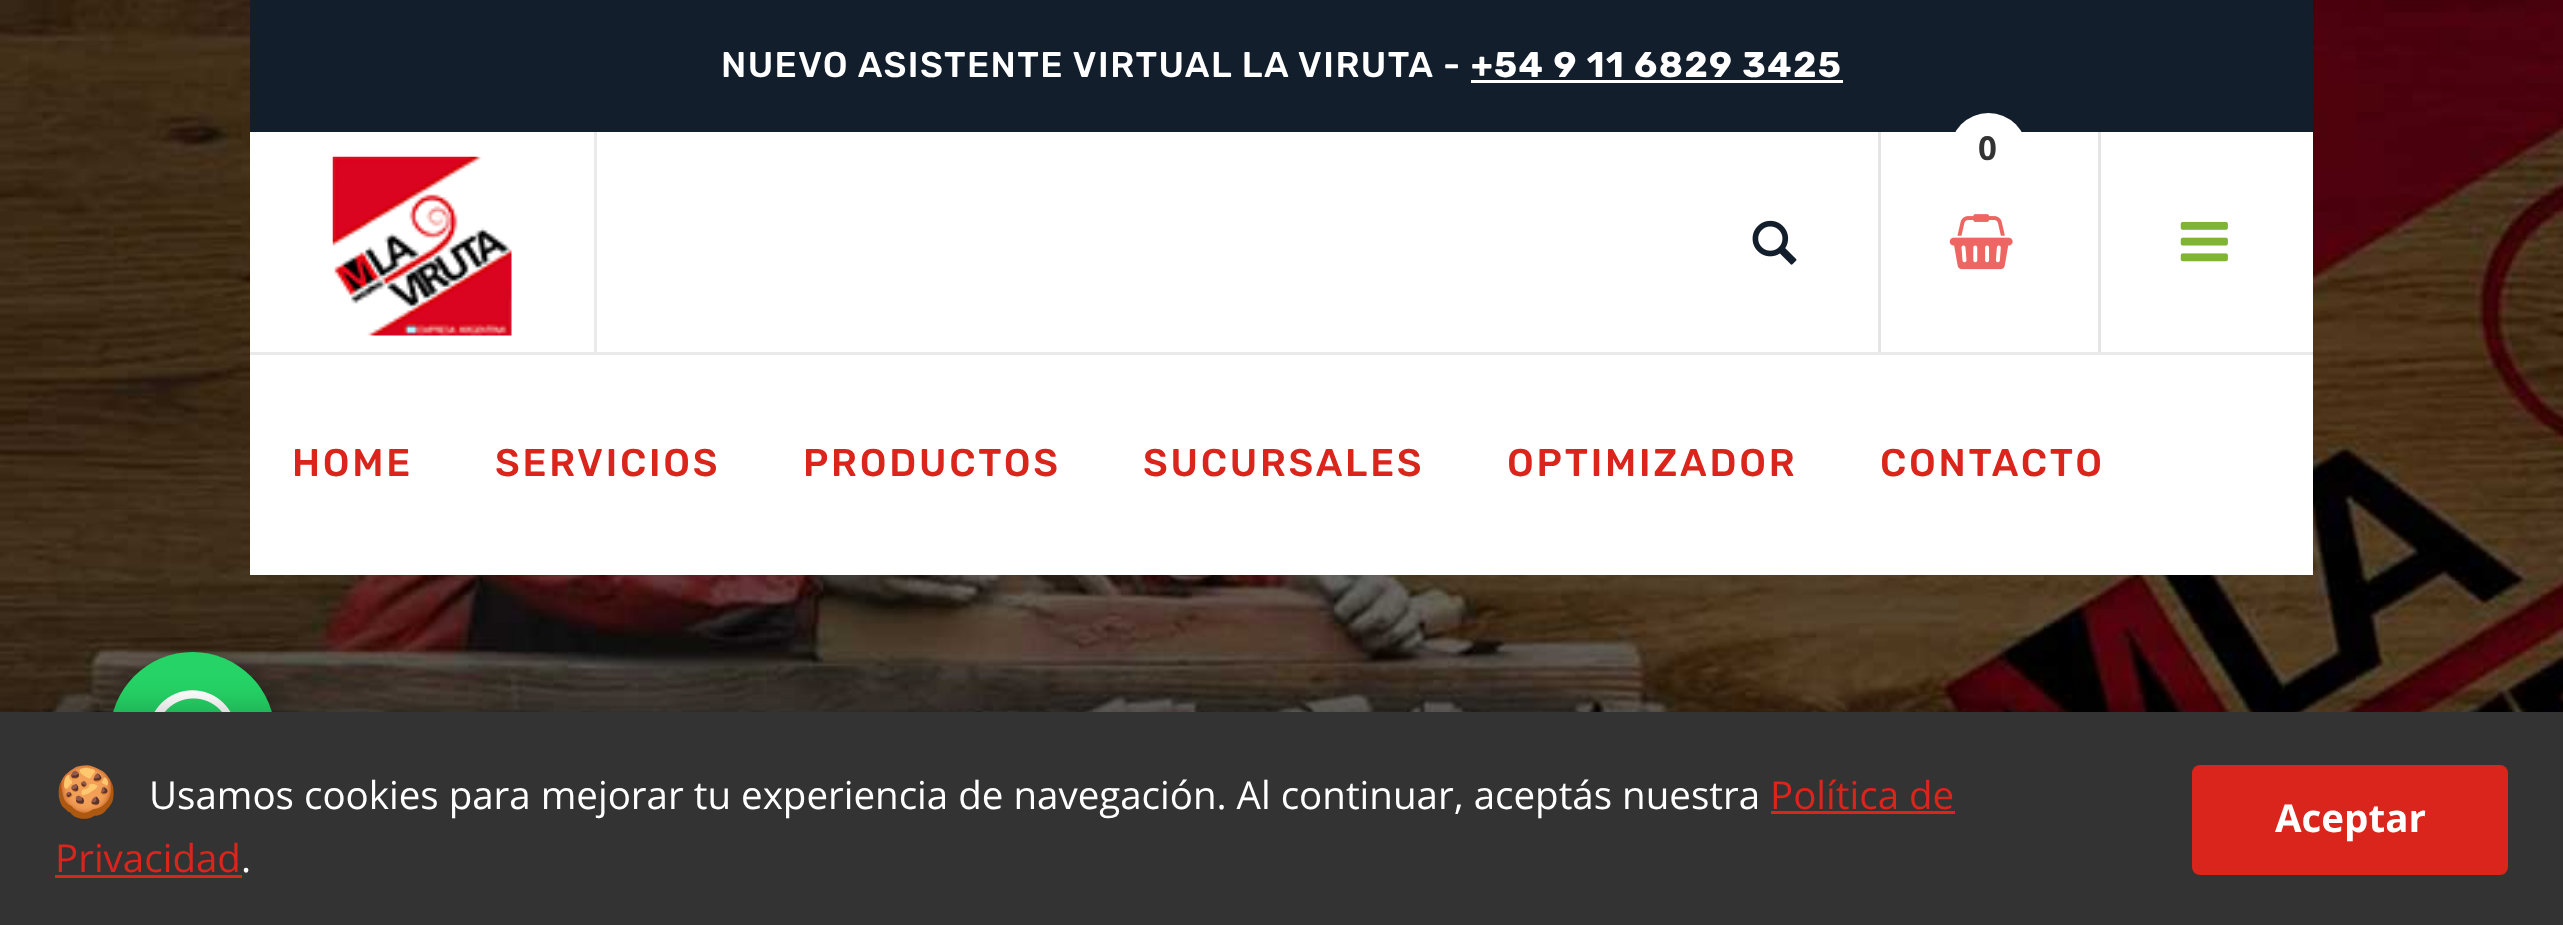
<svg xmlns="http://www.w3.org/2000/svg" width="2563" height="925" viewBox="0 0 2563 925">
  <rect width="100%" height="100%" fill="rgb(255,255,255)"/>
  <image x="0" y="0" width="2563" height="712" href="pic1.png"/>
  <rect x="250" y="0" width="2063" height="132" fill="rgb(19,30,44)"/>
  <text x="721" y="77" font-family="Rubik" font-size="35.75" font-weight="500" letter-spacing="1.4" fill="rgb(255,255,255)">NUEVO ASISTENTE VIRTUAL LA VIRUTA -</text>
  <text x="1471" y="77" font-family="Rubik" font-size="35.75" font-weight="bold" letter-spacing="1.4" fill="rgb(255,255,255)">+54 9 11 6829 3425</text>
  <rect x="1471" y="80" width="372" height="3" fill="rgb(255,255,255)"/>
  <rect x="250" y="132" width="2063" height="443" fill="rgb(255,255,255)"/>
  <rect x="594" y="132" width="3" height="220" fill="rgb(234,234,234)"/>
  <image x="332" y="156" width="180" height="180" href="pic2.png"/>
  <rect x="1878" y="132" width="3" height="220" fill="rgb(229,229,229)"/>
  <circle cx="1988.5" cy="151.5" r="38.5" fill="rgb(255,255,255)"/>
  <text x="1978" y="160" font-family="Open Sans" font-size="33" font-weight="bold" letter-spacing="1.4" fill="rgb(51,51,51)">0</text>
  <image x="1949" y="214" width="64" height="56" href="pic3.png"/>
  <rect x="2098" y="132" width="3" height="220" fill="rgb(229,229,229)"/>
  <image x="2180" y="221" width="48" height="41" href="pic4.png"/>
  <image x="1752" y="220" width="45" height="45" href="pic5.png"/>
  <rect x="250" y="352" width="2063" height="3" fill="rgb(234,234,234)"/>
  <g font-family="Rubik" font-size="38.5" font-weight="500" letter-spacing="2.75" fill="rgb(218,37,28)">
    <text x="292" y="476">HOME</text>
    <text x="495" y="476">SERVICIOS</text>
    <text x="803" y="476">PRODUCTOS</text>
    <text x="1143" y="476">SUCURSALES</text>
    <text x="1507" y="476">OPTIMIZADOR</text>
    <text x="1880" y="476">CONTACTO</text>
  </g>
  <rect x="116" y="657" width="165" height="165" rx="82.5" fill="rgba(0,0,0,0.3)" filter="blur(14px)"/>
  <circle cx="192.5" cy="734.5" r="82.5" fill="rgb(37,211,102)"/>
  <image x="154" y="690" width="77" height="22" href="pic6.png"/>
  <rect x="0" y="707" width="2563" height="214" fill="rgba(0,0,0,0.2)" filter="blur(14px)"/>
  <rect x="0" y="712" width="2563" height="213" fill="rgb(51,51,51)"/>
  <text x="55" y="809" font-family="Noto Color Emoji" font-size="50" fill="rgb(255,255,255)">🍪</text>
  <text x="149" y="809" font-family="Open Sans" font-size="38.5" fill="rgb(255,255,255)">Usamos cookies para mejorar tu experiencia de navegación. Al continuar, aceptás nuestra</text>
  <text x="1770" y="809" font-family="Open Sans" font-size="38.5" fill="rgb(218,37,28)">Política de</text>
  <rect x="1771" y="811" width="184" height="3" fill="rgb(218,37,28)"/>
  <text x="55" y="872" font-family="Open Sans" font-size="38.5" fill="rgb(218,37,28)">Privacidad</text>
  <text x="241" y="872" font-family="Open Sans" font-size="38.5" fill="rgb(255,255,255)">.</text>
  <rect x="55" y="875" width="187" height="3" fill="rgb(218,37,28)"/>
  <rect x="2192" y="765" width="316" height="110" rx="8" fill="rgb(218,37,28)"/>
  <text x="2275" y="832" font-family="Open Sans" font-size="38.5" font-weight="bold" fill="rgb(255,255,255)">Aceptar</text>
</svg>
